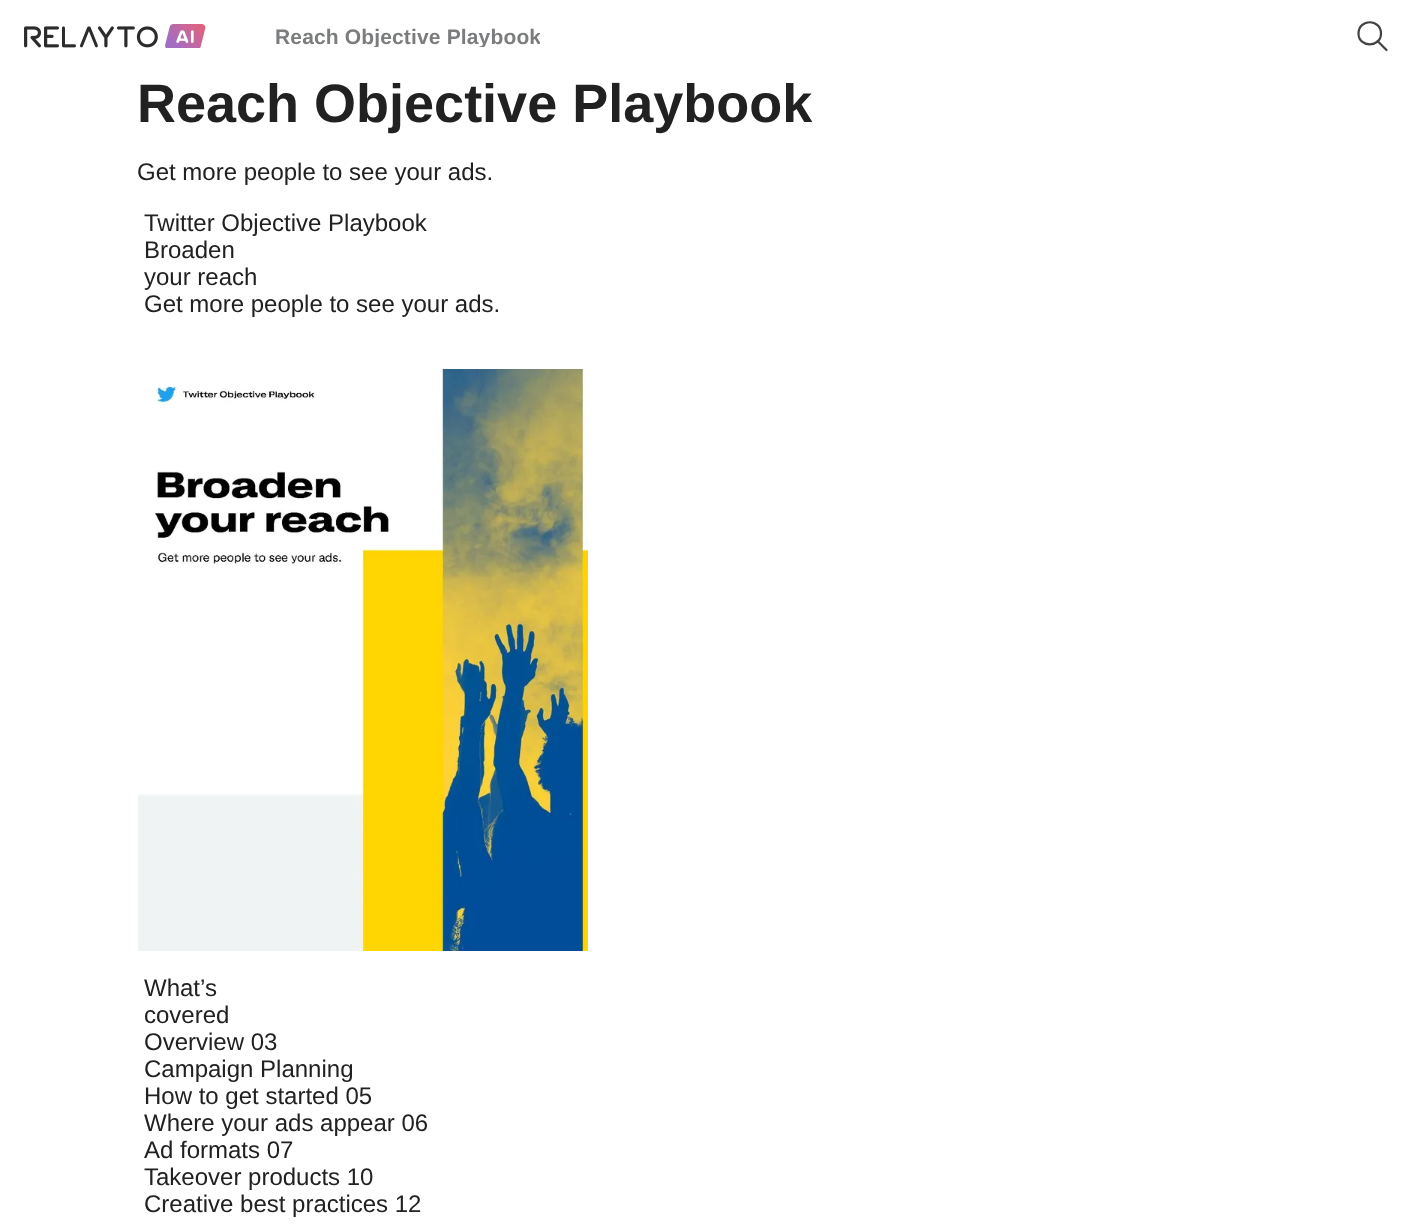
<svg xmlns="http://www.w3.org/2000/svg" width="1424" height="1230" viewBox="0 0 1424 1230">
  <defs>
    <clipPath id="clip1"><rect x="275" y="26" width="265" height="21"/></clipPath>
  </defs>
  <rect width="100%" height="100%" fill="rgb(255,255,255)"/>
  <image x="24" y="24" width="182" height="24" href="pic1.png"/>
  <g clip-path="url(#clip1)">
    <text x="275" y="44" font-family="Liberation Sans" font-size="21" font-weight="bold" letter-spacing="0.15" fill="rgb(123,124,125)">Reach Objective Playbook</text>
  </g>
  <path d="M1358.5 33.5C1358.5 48 1381 48 1381 33.5C1381 18.5 1358.5 18.5 1358.5 33.5ZM1377.5 41L1386.5 50" fill="none" stroke="rgb(67,67,67)" stroke-width="2.2" stroke-linecap="round" stroke-linejoin="round"/>
  <text x="137" y="122" font-family="Liberation Sans" font-size="54" font-weight="bold" fill="rgb(33,33,33)">Reach Objective Playbook</text>
  <g font-family="Liberation Sans" font-size="24" fill="rgb(33,33,33)">
    <text x="137" y="180">Get more people to see your ads.</text>
    <text>
      <tspan x="144" y="231">Twitter Objective Playbook</tspan>
      <tspan x="144" y="258">Broaden</tspan>
      <tspan x="144" y="285">your reach</tspan>
      <tspan x="144" y="312">Get more people to see your ads.</tspan>
    </text>
  </g>
  <image x="138" y="369" width="450" height="582" href="pic2.png"/>
  <g font-family="Liberation Sans" font-size="24" fill="rgb(33,33,33)">
    <text>
      <tspan x="144" y="996">What’s</tspan>
      <tspan x="144" y="1023">covered</tspan>
      <tspan x="144" y="1050">Overview 03</tspan>
      <tspan x="144" y="1077">Campaign Planning</tspan>
      <tspan x="144" y="1104">How to get started 05</tspan>
      <tspan x="144" y="1131">Where your ads appear 06</tspan>
      <tspan x="144" y="1158">Ad formats 07</tspan>
      <tspan x="144" y="1185">Takeover products 10</tspan>
      <tspan x="144" y="1212">Creative best practices 12</tspan>
    </text>
  </g>
</svg>
